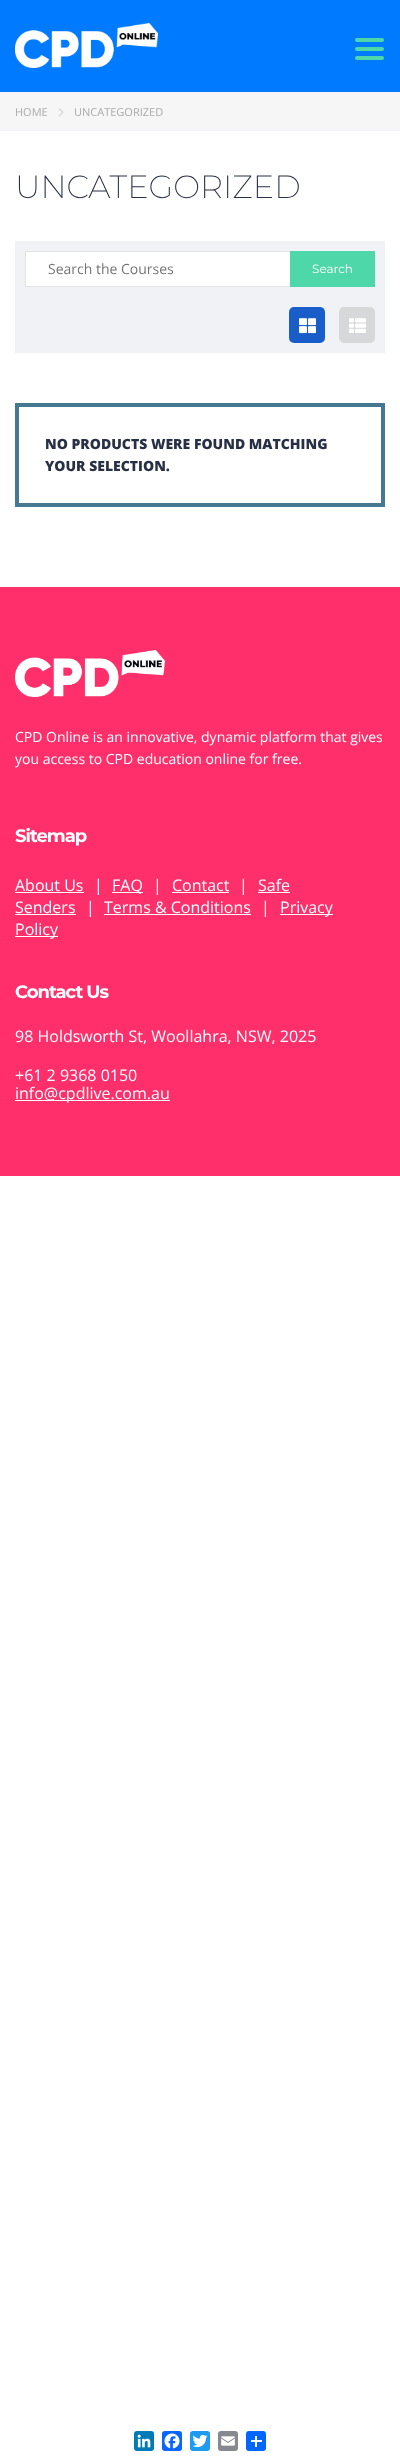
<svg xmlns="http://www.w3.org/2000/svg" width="400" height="2459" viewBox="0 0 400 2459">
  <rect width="100%" height="100%" fill="rgb(255,255,255)"/>
  <rect x="0" y="0" width="400" height="92" fill="rgb(0,122,255)"/>
  <image x="15" y="23" width="143" height="45" href="pic1.png"/>
  <rect x="355" y="38" width="29" height="4" rx="2" fill="rgb(78,215,168)"/>
  <rect x="355" y="47" width="29" height="4" rx="2" fill="rgb(78,215,168)"/>
  <rect x="355" y="56" width="29" height="4" rx="2" fill="rgb(78,215,168)"/>
  <rect x="0" y="92" width="400" height="38" fill="rgb(246,246,246)"/>
  <rect x="0" y="130" width="400" height="1" fill="rgb(240,242,245)"/>
  <text x="15" y="116" font-family="Open Sans" font-size="11" fill="rgb(170,170,170)">HOME</text>
  <image x="58" y="108" width="6" height="9" href="pic2.png"/>
  <text x="74" y="116" font-family="Open Sans" font-size="11" fill="rgb(170,170,170)">UNCATEGORIZED</text>
  <text x="15" y="198" font-family="Montserrat" font-size="32" font-weight="200" fill="rgb(39,48,68)">UNCATEGORIZED</text>
  <rect x="15" y="241" width="370" height="112" fill="rgb(240,242,245)"/>
  <rect x="26" y="252" width="264" height="34" fill="rgb(255,255,255)"/>
  <rect x="25.5" y="251.5" width="349" height="35" fill="none" stroke="rgb(225,226,228)"/>
  <text x="48" y="274" font-family="Open Sans" font-size="14" fill="rgb(117,117,117)">Search the Courses</text>
  <rect x="290" y="251" width="85" height="36" fill="rgb(78,215,168)"/>
  <text x="312" y="273" font-family="Montserrat" font-size="12" fill="rgb(255,255,255)">Search</text>
  <rect x="289" y="307" width="36" height="36" rx="5" fill="rgb(25,94,200)"/>
  <image x="299" y="318" width="17" height="16" href="pic3.png"/>
  <rect x="339" y="307" width="36" height="36" rx="5" fill="rgb(215,216,218)"/>
  <image x="349" y="318" width="17" height="15" href="pic4.png"/>
  <rect x="17" y="405" width="366" height="100" fill="none" stroke="rgb(69,121,146)" stroke-width="4"/>
  <g font-family="Open Sans" font-size="14" font-weight="800" fill="rgb(39,48,68)">
    <text>
      <tspan x="45" y="449">NO PRODUCTS WERE FOUND MATCHING</tspan>
      <tspan x="45" y="471">YOUR SELECTION.</tspan>
    </text>
  </g>
  <rect x="0" y="587" width="400" height="589" fill="rgb(255,47,107)"/>
  <image x="15" y="650" width="150" height="47" href="pic5.png"/>
  <g font-family="Open Sans" font-size="14" fill="rgb(255,255,255)">
    <text>
      <tspan x="15" y="742">CPD Online is an innovative, dynamic platform that gives</tspan>
      <tspan x="15" y="764">you access to CPD education online for free.</tspan>
    </text>
  </g>
  <text x="15" y="842" font-family="Montserrat" font-size="18" font-weight="bold" letter-spacing="-1" fill="rgb(255,255,255)">Sitemap</text>
  <text x="15" y="891" font-family="Open Sans" font-size="16" fill="rgb(255,255,255)">About Us</text>
  <rect x="15" y="892" width="69" height="1" fill="rgb(255,255,255)"/>
  <text x="94" y="891" font-family="Open Sans" font-size="16" fill="rgb(255,255,255)">|</text>
  <rect x="112" y="892" width="31" height="1" fill="rgb(255,255,255)"/>
  <g font-family="Open Sans" font-size="16" fill="rgb(255,255,255)">
    <text x="112" y="891">FAQ</text>
    <text x="153" y="891">|</text>
    <text x="172" y="891">Contact</text>
  </g>
  <rect x="172" y="892" width="57" height="1" fill="rgb(255,255,255)"/>
  <g font-family="Open Sans" font-size="16" fill="rgb(255,255,255)">
    <text x="239" y="891">|</text>
    <text x="258" y="891">Safe</text>
  </g>
  <rect x="258" y="892" width="32" height="1" fill="rgb(255,255,255)"/>
  <text x="15" y="913" font-family="Open Sans" font-size="16" fill="rgb(255,255,255)">Senders</text>
  <rect x="15" y="914" width="61" height="1" fill="rgb(255,255,255)"/>
  <g font-family="Open Sans" font-size="16" fill="rgb(255,255,255)">
    <text x="86" y="913">|</text>
    <text x="104" y="913">Terms &amp; Conditions</text>
  </g>
  <rect x="104" y="914" width="147" height="1" fill="rgb(255,255,255)"/>
  <text x="261" y="913" font-family="Open Sans" font-size="16" fill="rgb(255,255,255)">|</text>
  <rect x="280" y="914" width="53" height="1" fill="rgb(255,255,255)"/>
  <text x="280" y="913" font-family="Open Sans" font-size="16" fill="rgb(255,255,255)">Privacy</text>
  <rect x="15" y="936" width="43" height="1" fill="rgb(255,255,255)"/>
  <text x="15" y="935" font-family="Open Sans" font-size="16" fill="rgb(255,255,255)">Policy</text>
  <text x="15" y="998" font-family="Montserrat" font-size="18" font-weight="bold" letter-spacing="-1" fill="rgb(255,255,255)">Contact Us</text>
  <g font-family="Open Sans" font-size="16" fill="rgb(255,255,255)">
    <text x="15" y="1042">98 Holdsworth St, Woollahra, NSW, 2025</text>
    <text x="15" y="1081">+61 2 9368 0150</text>
  </g>
  <rect x="15" y="1100" width="155" height="1" fill="rgb(255,255,255)"/>
  <text x="15" y="1099" font-family="Open Sans" font-size="16" fill="rgb(255,255,255)">info@cpdlive.com.au</text>
  <rect x="134" y="2431" width="20" height="20" rx="3" fill="rgb(0,123,181)"/>
  <image x="137" y="2434" width="14" height="14" href="pic6.png"/>
  <rect x="162" y="2431" width="20" height="20" rx="3" fill="rgb(8,102,255)"/>
  <image x="164" y="2433" width="16" height="16" href="pic7.png"/>
  <rect x="190" y="2431" width="20" height="20" rx="3" fill="rgb(29,155,240)"/>
  <image x="192" y="2434" width="16" height="14" href="pic8.png"/>
  <rect x="218" y="2431" width="20" height="20" rx="3" fill="rgb(136,137,144)"/>
  <image x="221" y="2436" width="14" height="10" href="pic9.png"/>
  <rect x="246" y="2431" width="20" height="20" rx="3" fill="rgb(1,102,255)"/>
  <rect x="255" y="2436" width="2" height="11" fill="rgb(255,255,255)"/>
  <rect x="251" y="2440" width="11" height="2" fill="rgb(255,255,255)"/>
</svg>
